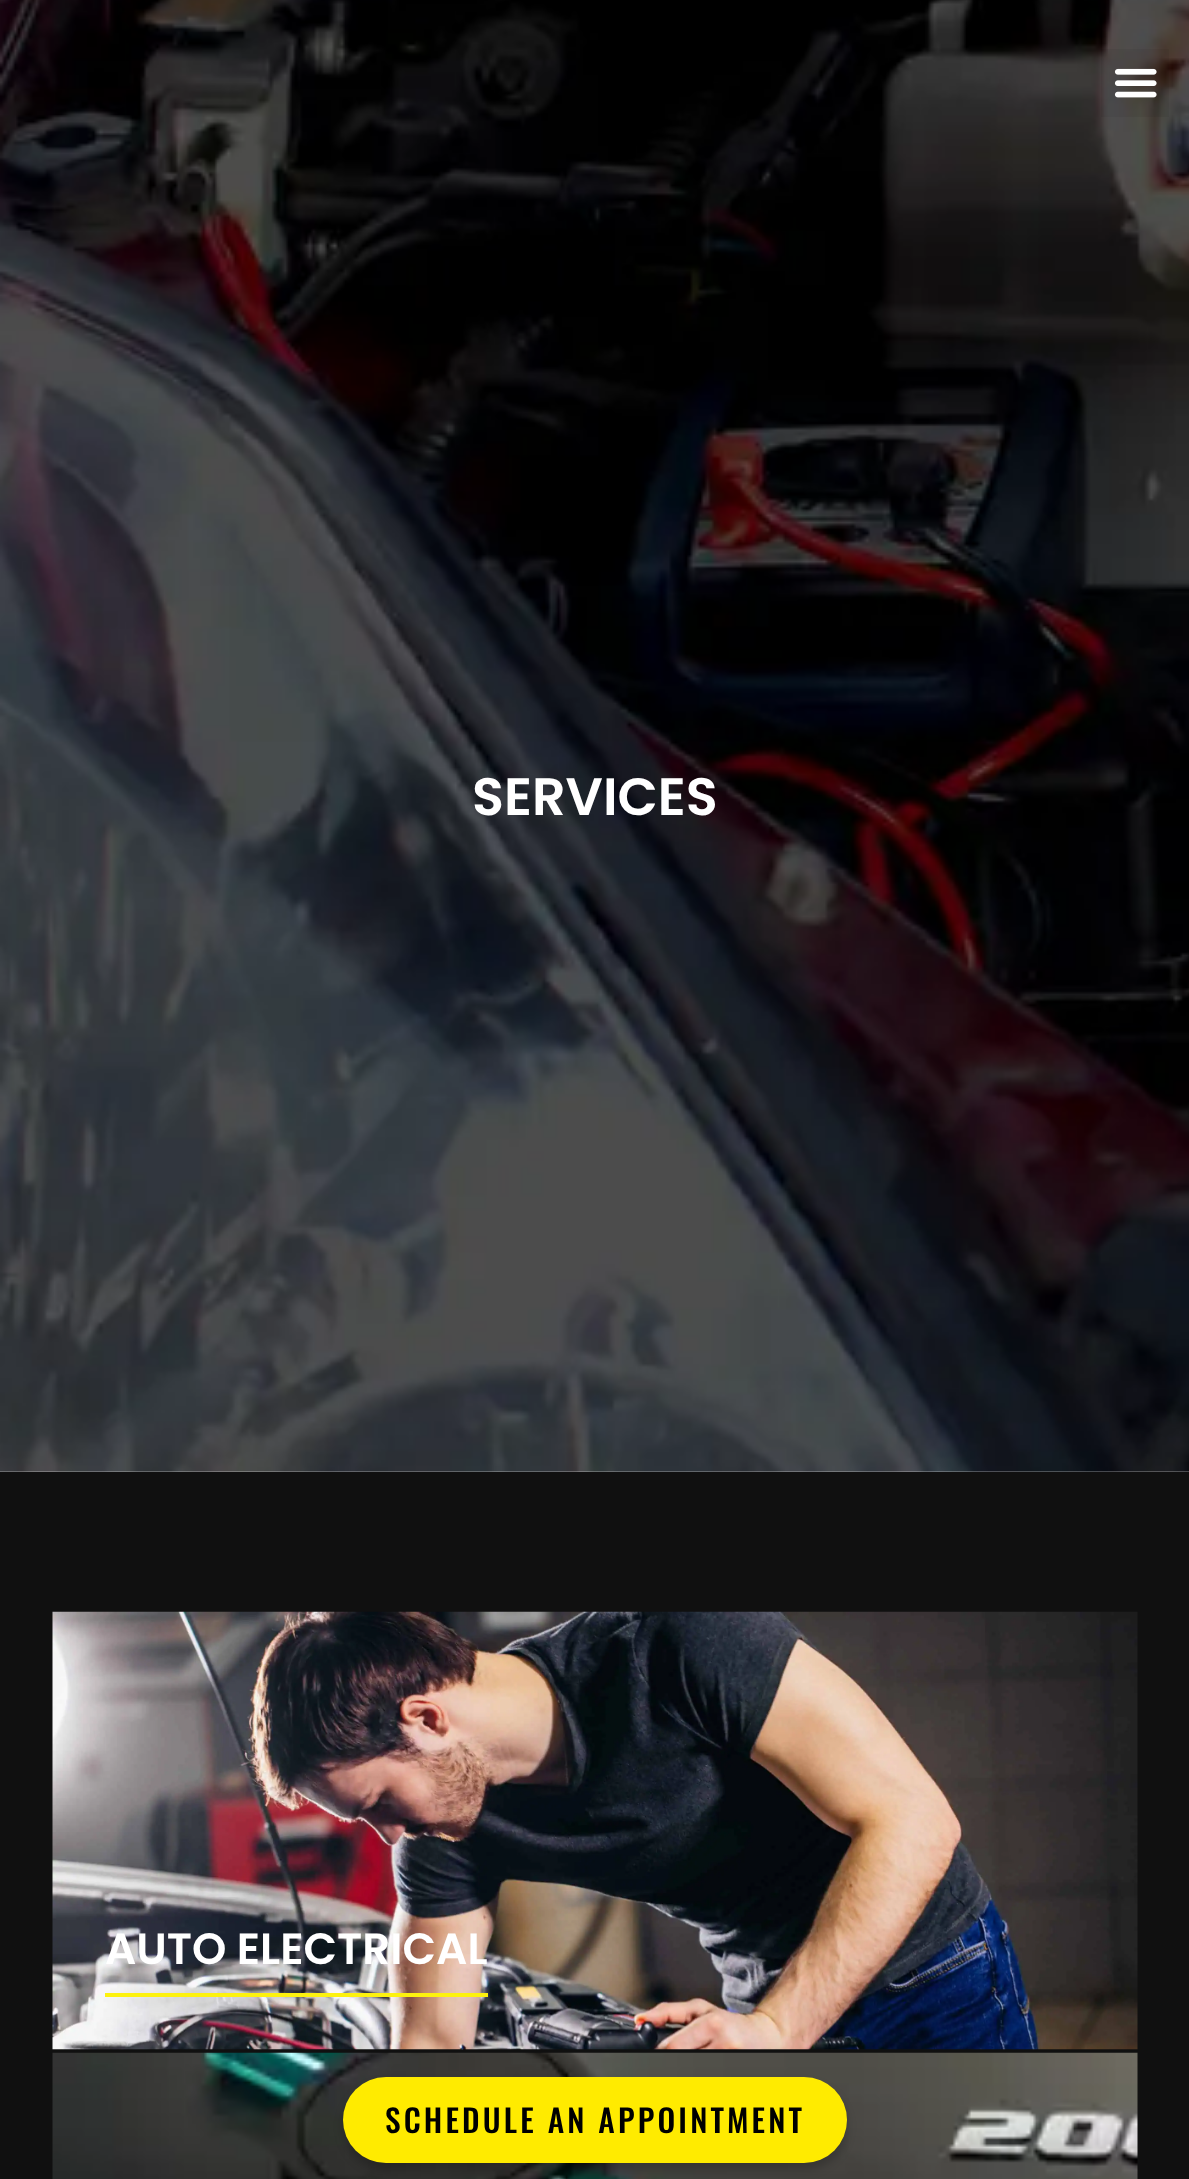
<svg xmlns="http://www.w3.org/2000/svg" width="1189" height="2179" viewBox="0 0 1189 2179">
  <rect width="100%" height="100%" fill="rgb(255,255,255)"/>
  <image x="0" y="0" width="1189" height="1472" href="pic2.png"/>
  <rect x="1101" y="49" width="68" height="68" fill="rgba(0,0,0,0.05)"/>
  <image x="1114" y="68" width="43" height="30" href="pic1.png"/>
  <text x="472" y="815" font-family="Poppins" font-size="52.5" font-weight="600" fill="rgb(255,255,255)">SERVICES</text>
  <rect x="0" y="1472" width="1189" height="707" fill="rgb(16,16,16)"/>
  <image x="52" y="1611" width="1086" height="439" href="pic3.png"/>
  <rect x="105" y="1993" width="383" height="4" fill="rgb(253,242,14)"/>
  <text x="105" y="1964" font-family="Poppins" font-size="43.75" font-weight="600" fill="rgb(255,255,255)">AUTO ELECTRICAL</text>
  <image x="52" y="2052" width="1086" height="127" href="pic4.png"/>
  <rect x="343" y="2084" width="504" height="86" rx="43" fill="rgba(0,0,0,0.2)" filter="blur(5px)"/>
  <rect x="343" y="2077" width="504" height="86" rx="43" fill="rgb(255,235,0)"/>
  <text x="385" y="2133" font-family="Oswald" font-size="31.5" font-weight="500" letter-spacing="3.15" fill="rgb(0,0,0)">SCHEDULE AN APPOINTMENT</text>
</svg>
